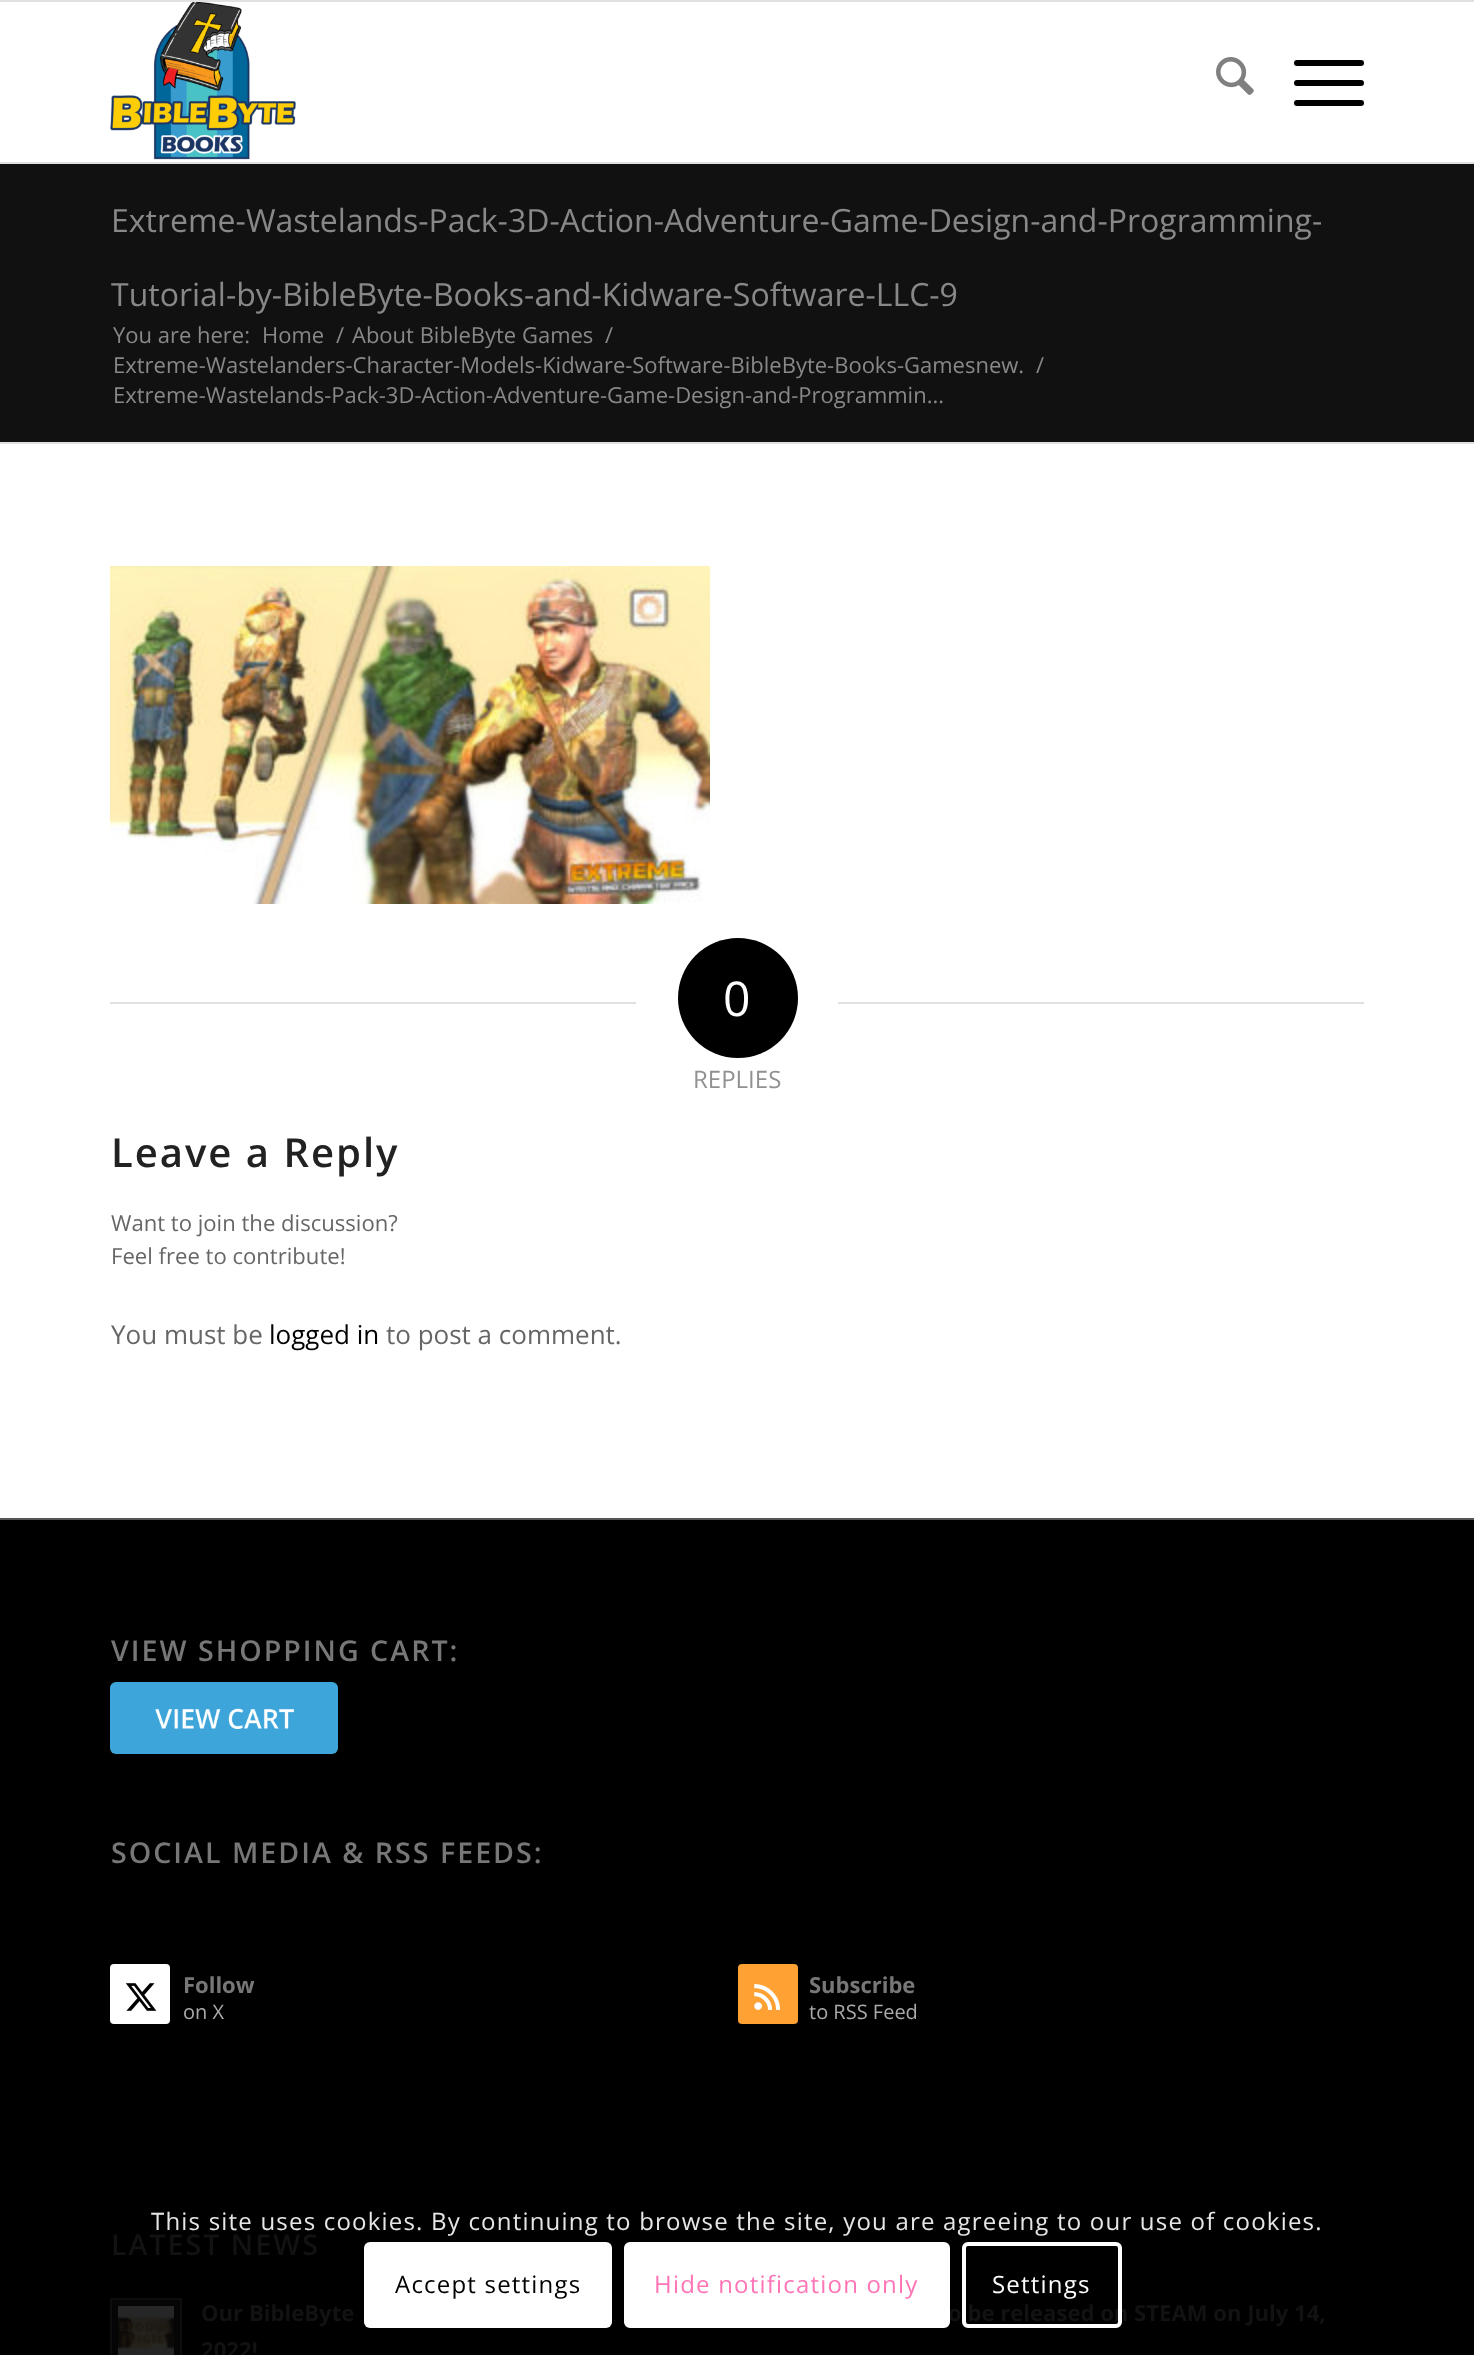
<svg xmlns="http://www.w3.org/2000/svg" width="1474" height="2355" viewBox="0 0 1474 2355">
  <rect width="100%" height="100%" fill="rgb(255,255,255)"/>
  <rect x="0" y="0" width="1474" height="2" fill="rgb(225,225,225)"/>
  <rect x="0" y="162" width="1474" height="2" fill="rgb(225,225,225)"/>
  <image x="110" y="2" width="186" height="158" href="pic1.png"/>
  <image x="1216" y="57" width="38" height="38" href="pic2.png"/>
  <rect x="1294" y="80" width="70" height="6" rx="3" fill="rgb(0,0,0)"/>
  <rect x="1294" y="60" width="70" height="6" rx="3" fill="rgb(0,0,0)"/>
  <rect x="1294" y="100" width="70" height="6" rx="3" fill="rgb(0,0,0)"/>
  <rect x="0" y="164" width="1474" height="278" fill="rgb(17,17,17)"/>
  <g font-family="Open Sans" font-size="32" fill="rgb(136,136,136)">
    <text x="111" y="232">Extreme-Wastelands-Pack-3D-Action-Adventure-Game-Design-and-Programming-</text>
    <text x="111" y="306">Tutorial-by-BibleByte-Books-and-Kidware-Software-LLC-9</text>
  </g>
  <g font-family="Open Sans" font-size="22" fill="rgb(136,136,136)">
    <text x="113" y="343">You are here:</text>
    <text x="262" y="343">Home</text>
    <text x="336" y="343">/</text>
    <text x="352" y="343">About BibleByte Games</text>
    <text x="605" y="343">/</text>
    <text x="113" y="373">Extreme-Wastelanders-Character-Models-Kidware-Software-BibleByte-Books-Gamesnew.</text>
    <text x="1036" y="373">/</text>
    <text x="113" y="403">Extreme-Wastelands-Pack-3D-Action-Adventure-Game-Design-and-Programmin...</text>
  </g>
  <rect x="0" y="442" width="1474" height="2" fill="rgb(225,225,225)"/>
  <image x="110" y="566" width="600" height="338" href="pic3.png"/>
  <rect x="110" y="1002" width="526" height="2" fill="rgb(225,225,225)"/>
  <circle cx="738" cy="998" r="60" fill="rgb(0,0,0)"/>
  <text x="723" y="1016" font-family="Open Sans" font-size="48" fill="rgb(255,255,255)">0</text>
  <rect x="838" y="1002" width="526" height="2" fill="rgb(225,225,225)"/>
  <text x="693" y="1088" font-family="Open Sans" font-size="24" fill="rgb(145,145,145)">REPLIES</text>
  <text x="111" y="1167" font-family="Open Sans" font-size="40" font-weight="600" letter-spacing="2" fill="rgb(34,34,34)">Leave a Reply</text>
  <g font-family="Open Sans" font-size="22.1" fill="rgb(102,102,102)">
    <text>
      <tspan x="111" y="1231">Want to join the discussion?</tspan>
      <tspan x="111" y="1264">Feel free to contribute!</tspan>
    </text>
  </g>
  <text x="111" y="1344" font-family="Open Sans" font-size="26" fill="rgb(102,102,102)">You must be</text>
  <text x="269" y="1344" font-family="Open Sans" font-size="26" fill="rgb(0,0,0)">logged in</text>
  <text x="386" y="1344" font-family="Open Sans" font-size="26" fill="rgb(102,102,102)">to post a comment.</text>
  <rect x="0" y="1520" width="1474" height="835" fill="rgb(0,0,0)"/>
  <rect x="0" y="1518" width="1474" height="2" fill="rgb(85,85,85)"/>
  <text x="111" y="1661" font-family="Open Sans" font-size="28.6" font-weight="600" letter-spacing="2" fill="rgb(119,119,119)">VIEW SHOPPING CART:</text>
  <rect x="110" y="1682" width="228" height="72" rx="6" fill="rgb(61,165,217)"/>
  <image x="155" y="1708" width="140" height="21" href="pic4.png"/>
  <text x="111" y="1863" font-family="Open Sans" font-size="28.6" font-weight="600" letter-spacing="2" fill="rgb(119,119,119)">SOCIAL MEDIA &amp; RSS FEEDS:</text>
  <rect x="110" y="1964" width="60" height="60" rx="4" fill="rgb(255,255,255)"/>
  <image x="125" y="1983" width="32" height="28" href="pic5.png"/>
  <text x="183" y="1993" font-family="Open Sans" font-size="22" font-weight="bold" fill="rgb(119,119,119)">Follow</text>
  <text x="183" y="2019" font-family="Open Sans" font-size="20" fill="rgb(170,170,170)">on X</text>
  <rect x="738" y="1964" width="60" height="60" rx="4" fill="rgb(255,161,51)"/>
  <image x="754" y="1984" width="27" height="26" href="pic6.png"/>
  <text x="809" y="1993" font-family="Open Sans" font-size="22" font-weight="bold" fill="rgb(119,119,119)">Subscribe</text>
  <text x="809" y="2019" font-family="Open Sans" font-size="20" fill="rgb(170,170,170)">to RSS Feed</text>
  <text x="111" y="2255" font-family="Open Sans" font-size="28.6" font-weight="600" letter-spacing="2" fill="rgb(18,18,18)">LATEST NEWS</text>
  <rect x="111" y="2299" width="70" height="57" fill="rgb(5,5,5)" stroke="rgb(13,13,13)" stroke-width="2"/>
  <image x="118" y="2306" width="56" height="49" href="pic7.png"/>
  <g font-family="Open Sans" font-size="22.1" font-weight="bold" fill="rgb(18,18,18)">
    <text x="201" y="2321">Our BibleByte</text>
    <text x="948" y="2321">o be released on STEAM on July 14,</text>
    <text x="201" y="2358">2022!</text>
  </g>
  <text x="151" y="2230" font-family="Open Sans" font-size="24" letter-spacing="1.2" fill="rgb(230,230,230)">This site uses cookies. By continuing to browse the site, you are agreeing to our use of cookies.</text>
  <rect x="364" y="2242" width="248" height="86" rx="6" fill="rgb(255,255,255)"/>
  <text x="395" y="2293" font-family="Open Sans" font-size="24" letter-spacing="1.2" fill="rgb(0,0,0)">Accept settings</text>
  <rect x="626" y="2244" width="322" height="82" rx="4" fill="rgb(255,255,255)" stroke="rgb(255,255,255)" stroke-width="4"/>
  <text x="654" y="2293" font-family="Open Sans" font-size="24" letter-spacing="1.2" fill="rgb(255,117,181)">Hide notification only</text>
  <rect x="964" y="2244" width="156" height="82" rx="4" fill="none" stroke="rgb(255,255,255)" stroke-width="4"/>
  <text x="992" y="2293" font-family="Open Sans" font-size="24" letter-spacing="1.2" fill="rgb(255,255,255)">Settings</text>
</svg>
